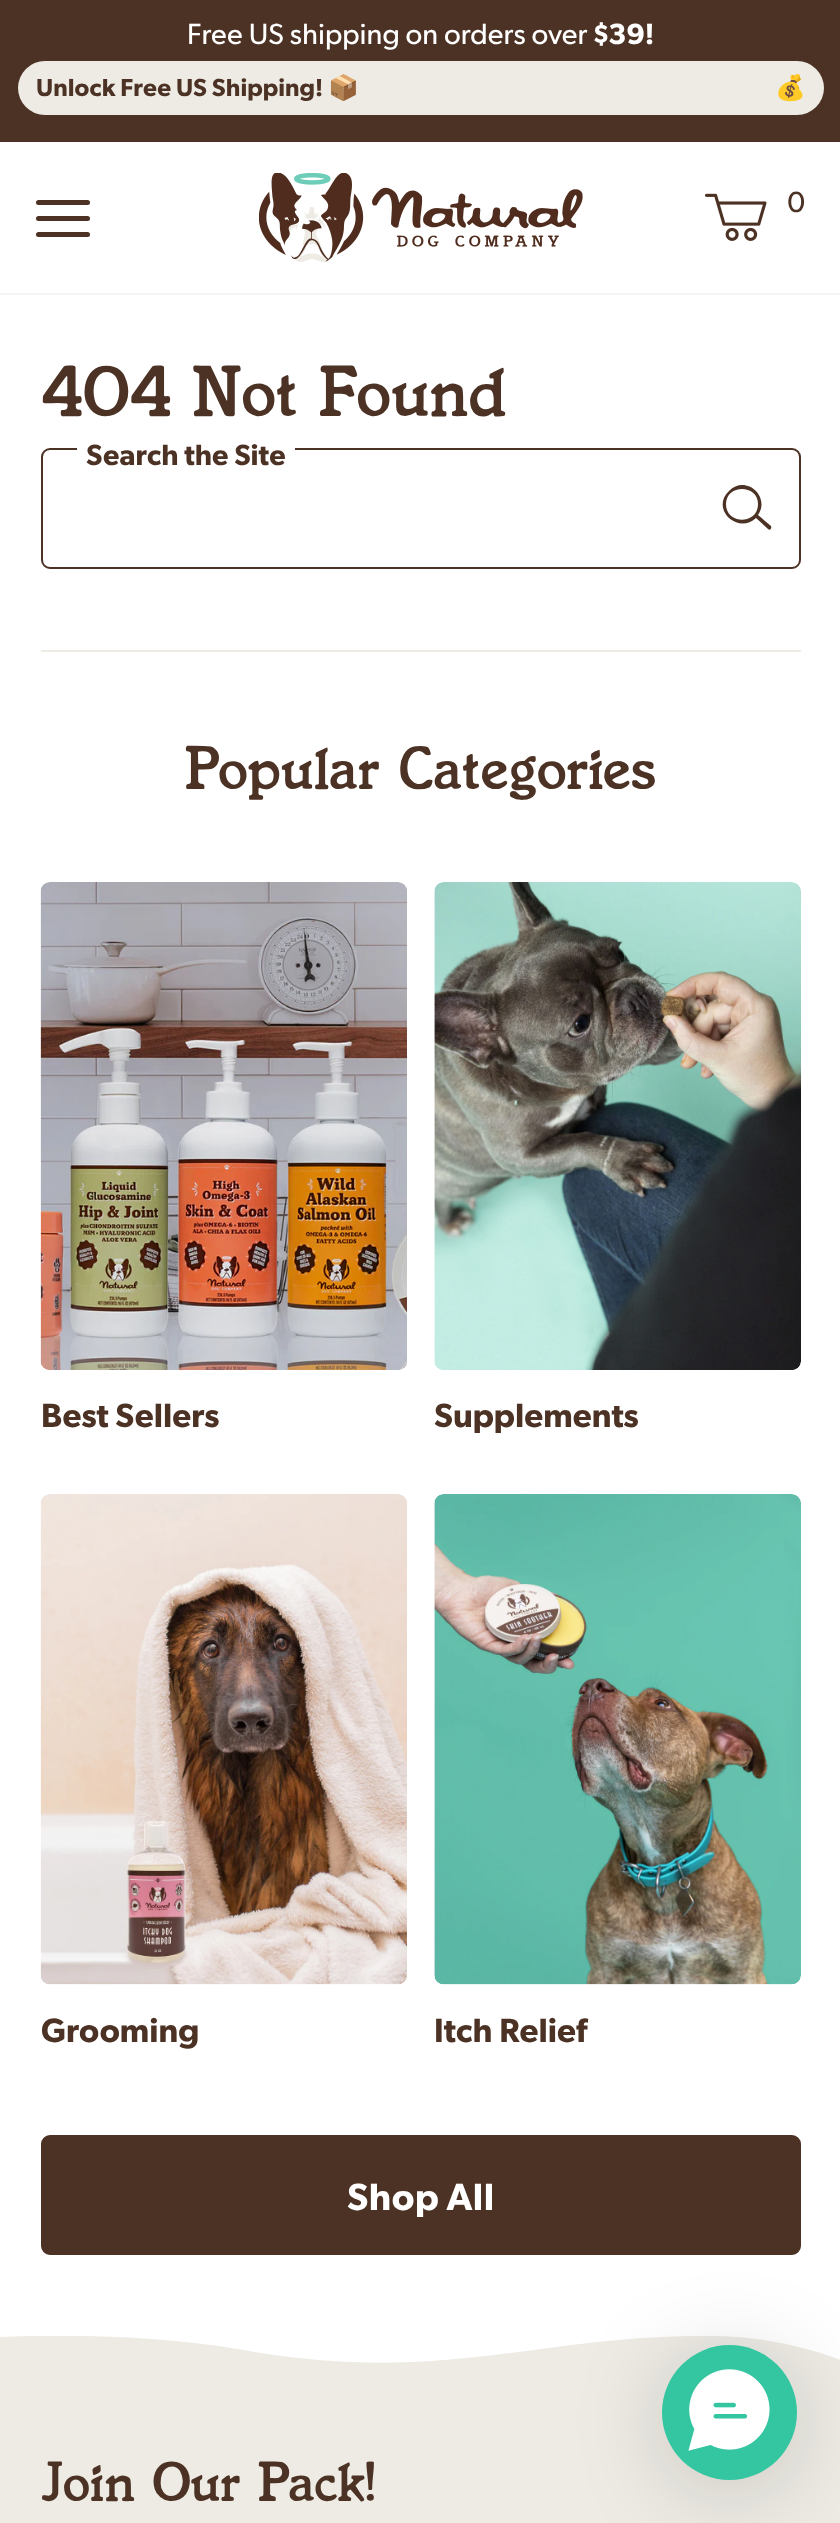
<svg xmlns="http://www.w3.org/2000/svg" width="840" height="2523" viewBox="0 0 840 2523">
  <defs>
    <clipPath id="clip1"><rect x="0" y="2336" width="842" height="40"/></clipPath>
  </defs>
  <rect width="100%" height="100%" fill="rgb(255,255,255)"/>
  <rect x="0" y="0" width="840" height="142" fill="rgb(76,50,36)"/>
  <text x="187" y="44" font-family="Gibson" font-size="29.25" fill="rgb(255,255,255)">Free US shipping on orders over</text>
  <text x="594" y="44" font-family="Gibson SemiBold" font-size="29.25" font-weight="600" fill="rgb(255,255,255)">$39!</text>
  <rect x="18" y="61" width="806" height="54" rx="27" fill="rgb(237,235,228)"/>
  <text x="36" y="96" font-family="Gibson SemiBold" font-size="24.75" font-weight="600" fill="rgb(76,50,36)">Unlock Free US Shipping!</text>
  <g font-family="Noto Color Emoji" font-size="24.75" font-weight="bold" fill="rgb(76,50,36)">
    <text x="328" y="96">📦</text>
    <text x="775" y="96">💰</text>
  </g>
  <rect x="0" y="293" width="840" height="2" fill="rgb(246,245,244)"/>
  <rect x="36" y="200" width="54" height="5" rx="2.5" fill="rgb(76,50,36)"/>
  <rect x="36" y="216" width="54" height="5" rx="2.5" fill="rgb(76,50,36)"/>
  <rect x="36" y="232" width="54" height="5" rx="2.5" fill="rgb(76,50,36)"/>
  <image x="259" y="173" width="324" height="89" href="pic1.png"/>
  <image x="705" y="193" width="62" height="48" href="pic2.png"/>
  <text x="787" y="212" font-family="Gibson" font-size="29.25" fill="rgb(76,50,36)">0</text>
  <text x="41" y="416" word-spacing="-10" font-family="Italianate" font-size="63" font-weight="100" font-style="italic" fill="rgb(76,50,36)">404 Not Found</text>
  <rect x="42" y="449" width="758" height="119" rx="8" fill="none" stroke="rgb(76,50,36)" stroke-width="2"/>
  <rect x="77" y="448" width="218" height="2" fill="rgb(255,255,255)"/>
  <text x="86" y="465" font-family="Gibson SemiBold" font-size="29.25" font-weight="600" fill="rgb(76,50,36)">Search the Site</text>
  <path d="M771 526L758 515C771 496 745 474 729 491C710 509 738 535 756 518L768 529C770 531 772 528 771 526ZM758 504C758 525 726 525 726 504C726 484 758 484 758 504Z" fill="rgb(76,50,36)"/>
  <rect x="41" y="650" width="760" height="2" fill="rgb(237,235,228)"/>
  <text x="185" y="789" word-spacing="-8" font-family="Italianate" font-size="54" font-weight="100" font-style="italic" fill="rgb(76,50,36)">Popular Categories</text>
  <image x="40" y="882" width="367" height="488" href="pic3.png"/>
  <text x="41" y="1427" font-family="Gibson SemiBold" font-size="33.75" font-weight="600" fill="rgb(76,50,36)">Best Sellers</text>
  <image x="434" y="882" width="367" height="488" href="pic4.png"/>
  <text x="434" y="1427" font-family="Gibson SemiBold" font-size="33.75" font-weight="600" fill="rgb(76,50,36)">Supplements</text>
  <image x="40" y="1494" width="367" height="491" href="pic5.png"/>
  <text x="41" y="2042" font-family="Gibson SemiBold" font-size="33.75" font-weight="600" fill="rgb(76,50,36)">Grooming</text>
  <image x="434" y="1494" width="367" height="491" href="pic6.png"/>
  <text x="434" y="2042" font-family="Gibson SemiBold" font-size="33.75" font-weight="600" fill="rgb(76,50,36)">Itch Relief</text>
  <rect x="43.5" y="2137.5" width="755" height="115" rx="6.5" fill="rgb(76,50,36)" stroke="rgb(76,50,36)" stroke-width="5"/>
  <text x="347" y="2210" font-family="Gibson SemiBold" font-size="38" font-weight="600" letter-spacing="0.5" fill="rgb(255,255,255)">Shop All</text>
  <g clip-path="url(#clip1)">
    <path d="M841 2360C803 2346 757 2335 703 2336C638 2336 585 2343 534 2350C450 2361 370 2371 255 2352C182 2338 86 2333 0 2337V2375H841Z" fill="rgb(237,235,228)" fill-rule="evenodd"/>
  </g>
  <rect x="0" y="2375" width="840" height="148" fill="rgb(237,235,228)"/>
  <text x="41" y="2501" word-spacing="-7" font-family="Italianate" font-size="49.5" font-weight="100" font-style="italic" fill="rgb(76,50,36)">Join Our Pack!</text>
  <rect x="662" y="2356" width="135" height="135" rx="67.5" fill="rgba(0,0,0,0.16)" filter="blur(45px)"/>
  <circle cx="729.5" cy="2412.5" r="67.5" fill="rgb(51,198,161)"/>
  <image x="688" y="2369" width="82" height="82" href="pic7.png"/>
</svg>
